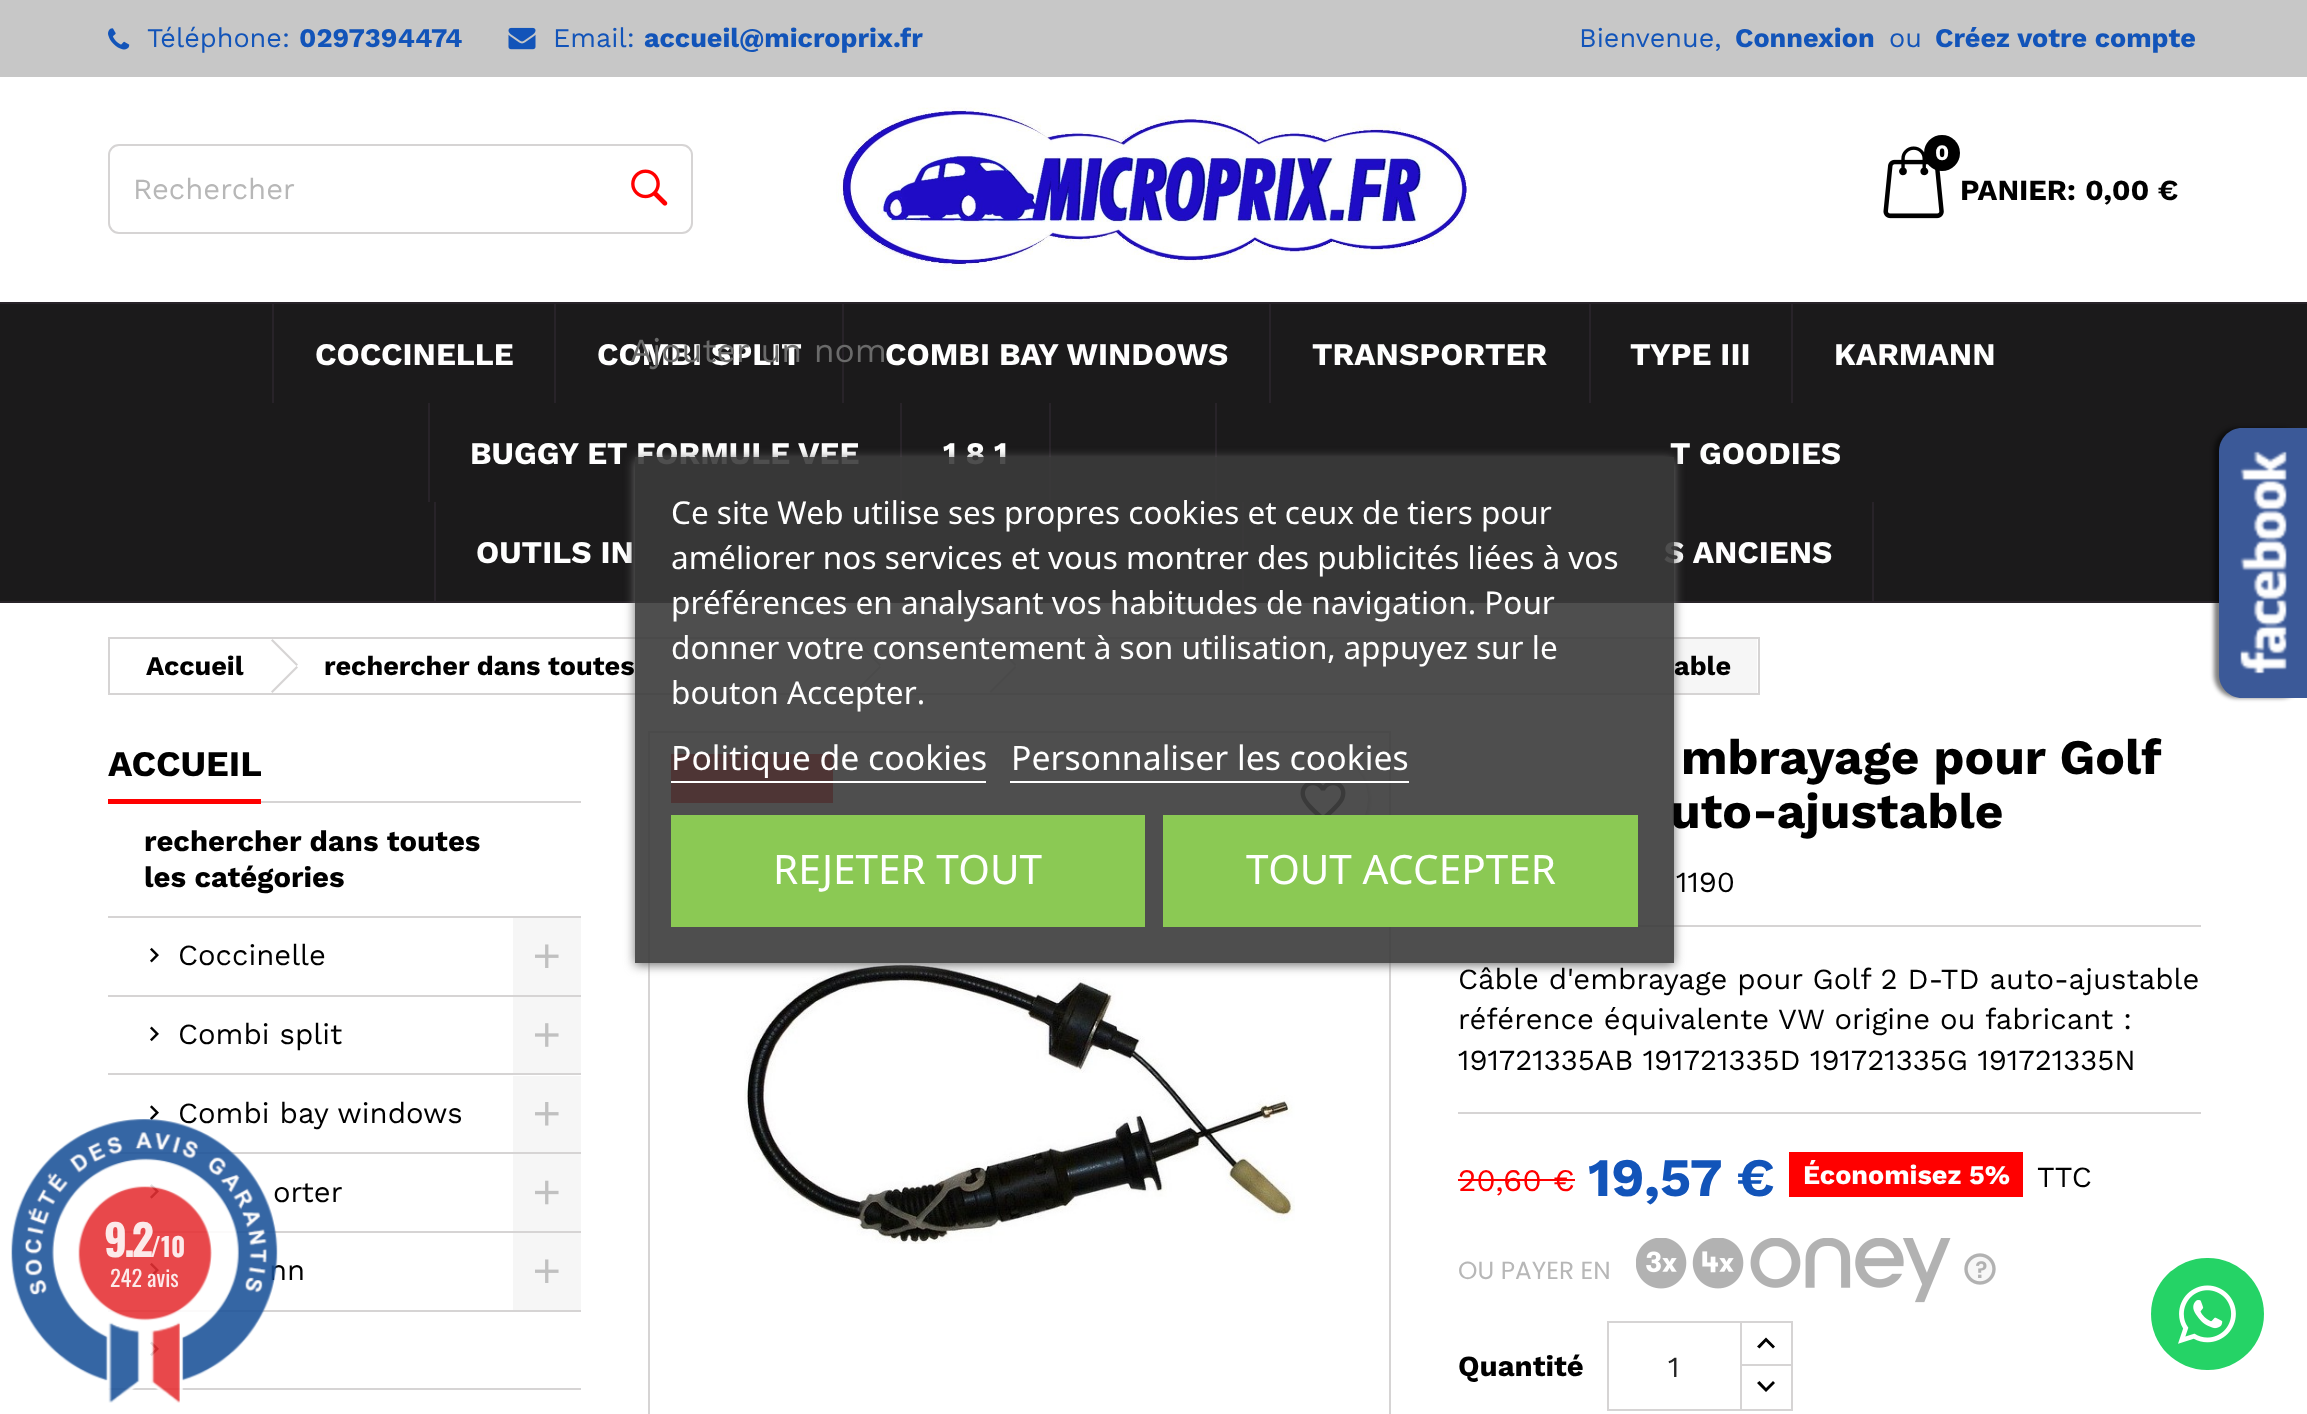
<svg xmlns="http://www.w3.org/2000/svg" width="2307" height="1414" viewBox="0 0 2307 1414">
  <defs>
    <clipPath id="clip1"><path d="M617 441H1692V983H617ZM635 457H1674V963H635Z" clip-rule="evenodd"/></clipPath>
  </defs>
  <rect width="100%" height="100%" fill="rgb(255,255,255)"/>
  <rect x="0" y="0" width="2307" height="77" fill="rgb(199,199,199)"/>
  <image x="108" y="28" width="22" height="22" href="pic1.png"/>
  <text x="147" y="47" font-family="Work Sans" font-size="27" fill="rgb(18,84,185)">Téléphone:</text>
  <text x="299" y="47" font-family="Work Sans" font-size="27" font-weight="bold" fill="rgb(18,84,185)">0297394474</text>
  <image x="508" y="27" width="28" height="23" href="pic2.png"/>
  <text x="553" y="47" font-family="Work Sans" font-size="27" fill="rgb(18,84,185)">Email:</text>
  <text x="644" y="47" font-family="Work Sans" font-size="27" font-weight="bold" fill="rgb(18,84,185)">accueil@microprix.fr</text>
  <text x="1579" y="47" font-family="Work Sans" font-size="27" fill="rgb(18,84,185)">Bienvenue,</text>
  <text x="1735" y="47" font-family="Work Sans" font-size="27" font-weight="bold" fill="rgb(18,84,185)">Connexion</text>
  <text x="1889" y="47" font-family="Work Sans" font-size="27" fill="rgb(18,84,185)">ou</text>
  <text x="1935" y="47" font-family="Work Sans" font-size="27" font-weight="bold" fill="rgb(18,84,185)">Créez votre compte</text>
  <rect x="109" y="145" width="583" height="88" rx="10" fill="none" stroke="rgb(214,212,212)" stroke-width="2"/>
  <text x="133" y="199" font-family="Work Sans" font-size="29.25" fill="rgb(183,183,183)">Rechercher</text>
  <image x="631" y="169" width="37" height="37" href="pic3.png"/>
  <image x="836" y="107" width="631" height="164" href="pic4.png"/>
  <image x="1883" y="146" width="61" height="73" href="pic5.png"/>
  <circle cx="1942" cy="153" r="18" fill="rgb(0,0,0)"/>
  <text x="1935" y="160" font-family="Work Sans" font-size="22" font-weight="bold" fill="rgb(255,255,255)">0</text>
  <g font-family="Work Sans" font-size="29.25" font-weight="bold" fill="rgb(0,0,0)">
    <text x="2085" y="200">0,00 €</text>
    <text x="1960" y="200">PANIER:</text>
  </g>
  <rect x="0" y="304" width="2307" height="297" fill="rgb(27,26,27)"/>
  <rect x="0" y="302" width="2307" height="2" fill="rgb(40,35,41)"/>
  <rect x="0" y="601" width="2219" height="2" fill="rgb(40,35,41)"/>
  <rect x="272" y="304" width="2" height="99" fill="rgb(40,35,41)"/>
  <text x="315" y="365" font-family="Work Sans" font-size="31.5" font-weight="bold" fill="rgb(255,255,255)">COCCINELLE</text>
  <rect x="554" y="304" width="2" height="99" fill="rgb(40,35,41)"/>
  <text x="597" y="365" font-family="Work Sans" font-size="31.5" font-weight="bold" fill="rgb(255,255,255)">COMBI SPLIT</text>
  <rect x="842" y="304" width="2" height="99" fill="rgb(40,35,41)"/>
  <text x="885" y="365" font-family="Work Sans" font-size="31.5" font-weight="bold" fill="rgb(255,255,255)">COMBI BAY WINDOWS</text>
  <rect x="1269" y="304" width="2" height="99" fill="rgb(40,35,41)"/>
  <text x="1312" y="365" font-family="Work Sans" font-size="31.5" font-weight="bold" fill="rgb(255,255,255)">TRANSPORTER</text>
  <rect x="1589" y="304" width="2" height="99" fill="rgb(40,35,41)"/>
  <text x="1630" y="365" font-family="Work Sans" font-size="31.5" font-weight="bold" fill="rgb(255,255,255)">TYPE III</text>
  <rect x="1791" y="304" width="2" height="99" fill="rgb(40,35,41)"/>
  <text x="1834" y="365" font-family="Work Sans" font-size="31.5" font-weight="bold" fill="rgb(255,255,255)">KARMANN</text>
  <rect x="428" y="403" width="2" height="99" fill="rgb(40,35,41)"/>
  <text x="470" y="464" font-family="Work Sans" font-size="31.5" font-weight="bold" fill="rgb(255,255,255)">BUGGY ET FORMULE VEE</text>
  <rect x="900" y="403" width="2" height="99" fill="rgb(40,35,41)"/>
  <text x="943" y="464" font-family="Work Sans" font-size="31.5" font-weight="bold" fill="rgb(255,255,255)">1 8 1</text>
  <rect x="1049" y="403" width="2" height="99" fill="rgb(40,35,41)"/>
  <rect x="1215" y="403" width="2" height="99" fill="rgb(40,35,41)"/>
  <text x="1670" y="464" font-family="Work Sans" font-size="31.5" font-weight="bold" fill="rgb(255,255,255)">T GOODIES</text>
  <rect x="434" y="502" width="2" height="99" fill="rgb(40,35,41)"/>
  <text x="476" y="563" font-family="Work Sans" font-size="31.5" font-weight="bold" fill="rgb(255,255,255)">OUTILS IN</text>
  <rect x="1872" y="502" width="2" height="99" fill="rgb(40,35,41)"/>
  <rect x="1242" y="502" width="2" height="99" fill="rgb(40,35,41)"/>
  <text x="1664" y="563" font-family="Work Sans" font-size="31.5" font-weight="bold" fill="rgb(255,255,255)">S ANCIENS</text>
  <text x="630" y="362" font-family="Work Sans" font-size="33.75" fill="rgb(106,106,106)">Ajouter un nom</text>
  <rect x="109" y="638" width="1650" height="56" fill="none" stroke="rgb(214,212,212)" stroke-width="2"/>
  <path d="M855.5 639L881 664.5L879.5 666L854 640.5ZM879.5 666L881 667.5L855.5 693L854 691.5Z" fill="rgb(214,212,212)"/>
  <rect x="992" y="639" width="765" height="54" fill="rgb(246,246,246)"/>
  <path d="M993 641L1015 663C1017 665 1017 667 1015 669L993 691C991 693 988 693 986 691L964 669C962 667 962 665 964 663L986 641C988 639 991 639 993 641Z" fill="rgb(255,255,255)"/>
  <path d="M991 639L1016.5 664.5L1015 666L989.5 640.5ZM1015 666L1016.5 667.5L991 693L989.5 691.5Z" fill="rgb(214,212,212)"/>
  <rect x="649" y="732" width="741" height="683" fill="none" stroke="rgb(214,212,212)" stroke-width="2"/>
  <image x="744" y="961" width="551" height="283" href="pic16.png"/>
  <rect x="671" y="754" width="162" height="49" fill="rgb(255,0,0)"/>
  <rect x="1638" y="925" width="563" height="2" fill="rgb(214,212,212)"/>
  <rect x="1280" y="756" width="90" height="90" rx="45" fill="rgba(0,0,0,0.2)" filter="blur(2px)"/>
  <circle cx="1323" cy="799" r="45" fill="rgb(255,255,255)"/>
  <image x="1300" y="780" width="46" height="35" href="pic19.png"/>
  <g clip-path="url(#clip1)">
    <rect x="635" y="459" width="1039" height="506" fill="rgb(112,112,112)" filter="blur(5.5px)"/>
  </g>
  <text x="1670" y="828" font-family="Work Sans" font-size="49.5" font-weight="bold" fill="rgb(0,0,0)">uto-ajustable</text>
  <rect x="635" y="457" width="1039" height="506" fill="rgba(59,59,59,0.9)"/>
  <g font-family="Noto Sans" font-size="31.5" fill="rgb(255,255,255)">
    <text>
      <tspan x="671" y="524">Ce site Web utilise ses propres cookies et ceux de tiers pour</tspan>
      <tspan x="671" y="569">améliorer nos services et vous montrer des publicités liées à vos</tspan>
      <tspan x="671" y="614">préférences en analysant vos habitudes de navigation. Pour</tspan>
      <tspan x="671" y="659">donner votre consentement à son utilisation, appuyez sur le</tspan>
      <tspan x="671" y="704">bouton Accepter.</tspan>
    </text>
  </g>
  <text x="671" y="770" font-family="Noto Sans" font-size="33.75" fill="rgb(255,255,255)">Politique de cookies</text>
  <rect x="671" y="781" width="315" height="2" fill="rgb(255,255,255)"/>
  <text x="1011" y="770" font-family="Noto Sans" font-size="33.75" fill="rgb(255,255,255)">Personnaliser les cookies</text>
  <rect x="1010" y="781" width="399" height="2" fill="rgb(255,255,255)"/>
  <rect x="671" y="815" width="474" height="112" fill="rgb(139,201,84)"/>
  <text x="773" y="884" font-family="Noto Sans" font-size="40.5" fill="rgb(255,255,255)">REJETER TOUT</text>
  <rect x="1163" y="815" width="475" height="112" fill="rgb(139,201,84)"/>
  <text x="1246" y="884" font-family="Noto Sans" font-size="40.5" fill="rgb(255,255,255)">TOUT ACCEPTER</text>
  <rect x="2151" y="1258" width="113" height="112" rx="56" fill="rgb(37,211,102)"/>
  <image x="2178" y="1285" width="58" height="59" href="pic6.png"/>
  <rect x="2214" y="428" width="90" height="270" rx="23" fill="rgba(0,0,0,0.5)" filter="blur(2px)"/>
  <path d="M2242 428H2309V698H2242C2229.5 698 2219 687.5 2219 675V451C2219 438.5 2229.5 428 2242 428Z" fill="rgb(59,89,152)"/>
  <image x="2240" y="451" width="47" height="223" href="pic7.png"/>
  <text x="146" y="675" font-family="Work Sans" font-size="27" font-weight="bold" fill="rgb(0,0,0)">Accueil</text>
  <path d="M272.5 639L298 664.5L296.5 666L271 640.5ZM296.5 666L298 667.5L272.5 693L271 691.5Z" fill="rgb(214,212,212)"/>
  <g font-family="Work Sans" font-size="27" font-weight="bold" fill="rgb(0,0,0)">
    <text x="324" y="675">rechercher dans toutes</text>
    <text x="1674" y="675">able</text>
  </g>
  <rect x="261" y="801" width="320" height="2" fill="rgb(214,212,212)"/>
  <rect x="108" y="799" width="153" height="5" fill="rgb(255,0,0)"/>
  <text x="108" y="776" font-family="Work Sans" font-size="36" font-weight="bold" fill="rgb(0,0,0)">ACCUEIL</text>
  <rect x="108" y="916" width="473" height="2" fill="rgb(214,212,212)"/>
  <g font-family="Work Sans" font-size="29.25" font-weight="bold" fill="rgb(0,0,0)">
    <text>
      <tspan x="144" y="851">rechercher dans toutes</tspan>
      <tspan x="144" y="887">les catégories</tspan>
    </text>
  </g>
  <rect x="108" y="995" width="473" height="2" fill="rgb(214,212,212)"/>
  <image x="150" y="947" width="9" height="16" href="pic8.png"/>
  <text x="178" y="965" font-family="Work Sans" font-size="29.25" fill="rgb(0,0,0)">Coccinelle</text>
  <rect x="513" y="918" width="68" height="77" fill="rgb(246,246,246)"/>
  <image x="535" y="944" width="24" height="24" href="pic9.png"/>
  <rect x="108" y="1073" width="473" height="2" fill="rgb(214,212,212)"/>
  <image x="150" y="1026" width="9" height="16" href="pic10.png"/>
  <text x="178" y="1044" font-family="Work Sans" font-size="29.25" fill="rgb(0,0,0)">Combi split</text>
  <rect x="513" y="997" width="68" height="76" fill="rgb(246,246,246)"/>
  <image x="535" y="1023" width="24" height="24" href="pic11.png"/>
  <rect x="108" y="1152" width="473" height="2" fill="rgb(214,212,212)"/>
  <image x="150" y="1105" width="9" height="15" href="pic12.png"/>
  <text x="178" y="1123" font-family="Work Sans" font-size="29.25" fill="rgb(0,0,0)">Combi bay windows</text>
  <rect x="513" y="1076" width="68" height="76" fill="rgb(246,246,246)"/>
  <image x="535" y="1102" width="24" height="24" href="pic13.png"/>
  <rect x="108" y="1231" width="473" height="2" fill="rgb(214,212,212)"/>
  <image x="150" y="1184" width="9" height="15" href="pic14.png"/>
  <text x="273" y="1202" font-family="Work Sans" font-size="29.25" fill="rgb(0,0,0)">orter</text>
  <rect x="513" y="1154" width="68" height="77" fill="rgb(246,246,246)"/>
  <image x="535" y="1180" width="24" height="25" href="pic15.png"/>
  <rect x="108" y="1310" width="473" height="2" fill="rgb(214,212,212)"/>
  <image x="150" y="1262" width="9" height="16" href="pic8.png"/>
  <text x="269" y="1280" font-family="Work Sans" font-size="29.25" fill="rgb(0,0,0)">nn</text>
  <rect x="513" y="1233" width="68" height="77" fill="rgb(246,246,246)"/>
  <image x="535" y="1259" width="24" height="24" href="pic9.png"/>
  <rect x="108" y="1388" width="473" height="2" fill="rgb(214,212,212)"/>
  <image x="150" y="1341" width="9" height="16" href="pic10.png"/>
  <text x="1681" y="774" font-family="Work Sans" font-size="49.5" font-weight="bold" fill="rgb(0,0,0)">mbrayage pour Golf</text>
  <g font-family="Work Sans" font-size="29.25" fill="rgb(0,0,0)">
    <text x="1676" y="892">1190</text>
    <text>
      <tspan x="1458" y="989">Câble d'embrayage pour Golf 2 D-TD auto-ajustable</tspan>
      <tspan x="1458" y="1029">référence équivalente VW origine ou fabricant :</tspan>
      <tspan x="1458" y="1070">191721335AB 191721335D 191721335G 191721335N</tspan>
    </text>
  </g>
  <rect x="1458" y="1112" width="743" height="2" fill="rgb(214,212,212)"/>
  <text x="1458" y="1191" font-family="Work Sans" font-size="31.5" fill="rgb(255,0,0)">20,60 €</text>
  <rect x="1458" y="1179" width="117" height="2" fill="rgb(255,0,0)"/>
  <text x="1588" y="1196" font-family="Work Sans" font-size="54" font-weight="bold" fill="rgb(18,84,185)">19,57 €</text>
  <rect x="1789" y="1152" width="234" height="45" fill="rgb(255,0,0)"/>
  <text x="1803" y="1184" font-family="Work Sans" font-size="27" font-weight="bold" fill="rgb(255,255,255)">Économisez 5%</text>
  <text x="2037" y="1187" font-family="Work Sans" font-size="29.25" fill="rgb(0,0,0)">TTC</text>
  <text x="1458" y="1279" font-family="Poppins" font-size="24.75" fill="rgb(183,183,183)">OU PAYER EN</text>
  <image x="1636" y="1238" width="315" height="65" href="pic17.png"/>
  <image x="1964" y="1253" width="32" height="32" href="pic18.png"/>
  <text x="1458" y="1376" font-family="Work Sans" font-size="29.25" font-weight="bold" fill="rgb(0,0,0)">Quantité</text>
  <rect x="1740" y="1322" width="52" height="45" fill="none" stroke="rgb(214,212,212)" stroke-width="2"/>
  <rect x="1742" y="1366" width="49" height="2" fill="rgb(255,255,255)"/>
  <rect x="1740" y="1365" width="52" height="45" fill="none" stroke="rgb(214,212,212)" stroke-width="2"/>
  <rect x="1739" y="1323" width="1" height="86" fill="rgb(255,255,255)"/>
  <rect x="1608" y="1322" width="133" height="88" fill="none" stroke="rgb(214,212,212)" stroke-width="2"/>
  <text x="1668" y="1377" font-family="Work Sans" font-size="29.25" fill="rgb(35,35,35)">1</text>
  <path d="M1766 1337.5L1775 1346.5L1773 1348.5L1766 1341.5L1759.5 1348.5L1757 1346.5Z" fill="rgb(0,0,0)"/>
  <path d="M1773 1381L1775 1383L1766 1392L1757 1383L1759.5 1381L1766 1388Z" fill="rgb(0,0,0)"/>
  <image x="11" y="1119" width="267" height="284" href="pic20.png"/>
  <text x="104" y="1257" font-family="Oswald" font-size="43" font-weight="bold" letter-spacing="-3" fill="rgb(252,234,234)">9.2</text>
  <text x="150" y="1257" font-family="Oswald" font-size="26" font-weight="bold" fill="rgb(252,234,234)">/10</text>
  <text x="110" y="1287" font-family="Oswald" font-size="22.5" fill="rgb(252,234,234)">242 avis</text>
</svg>
